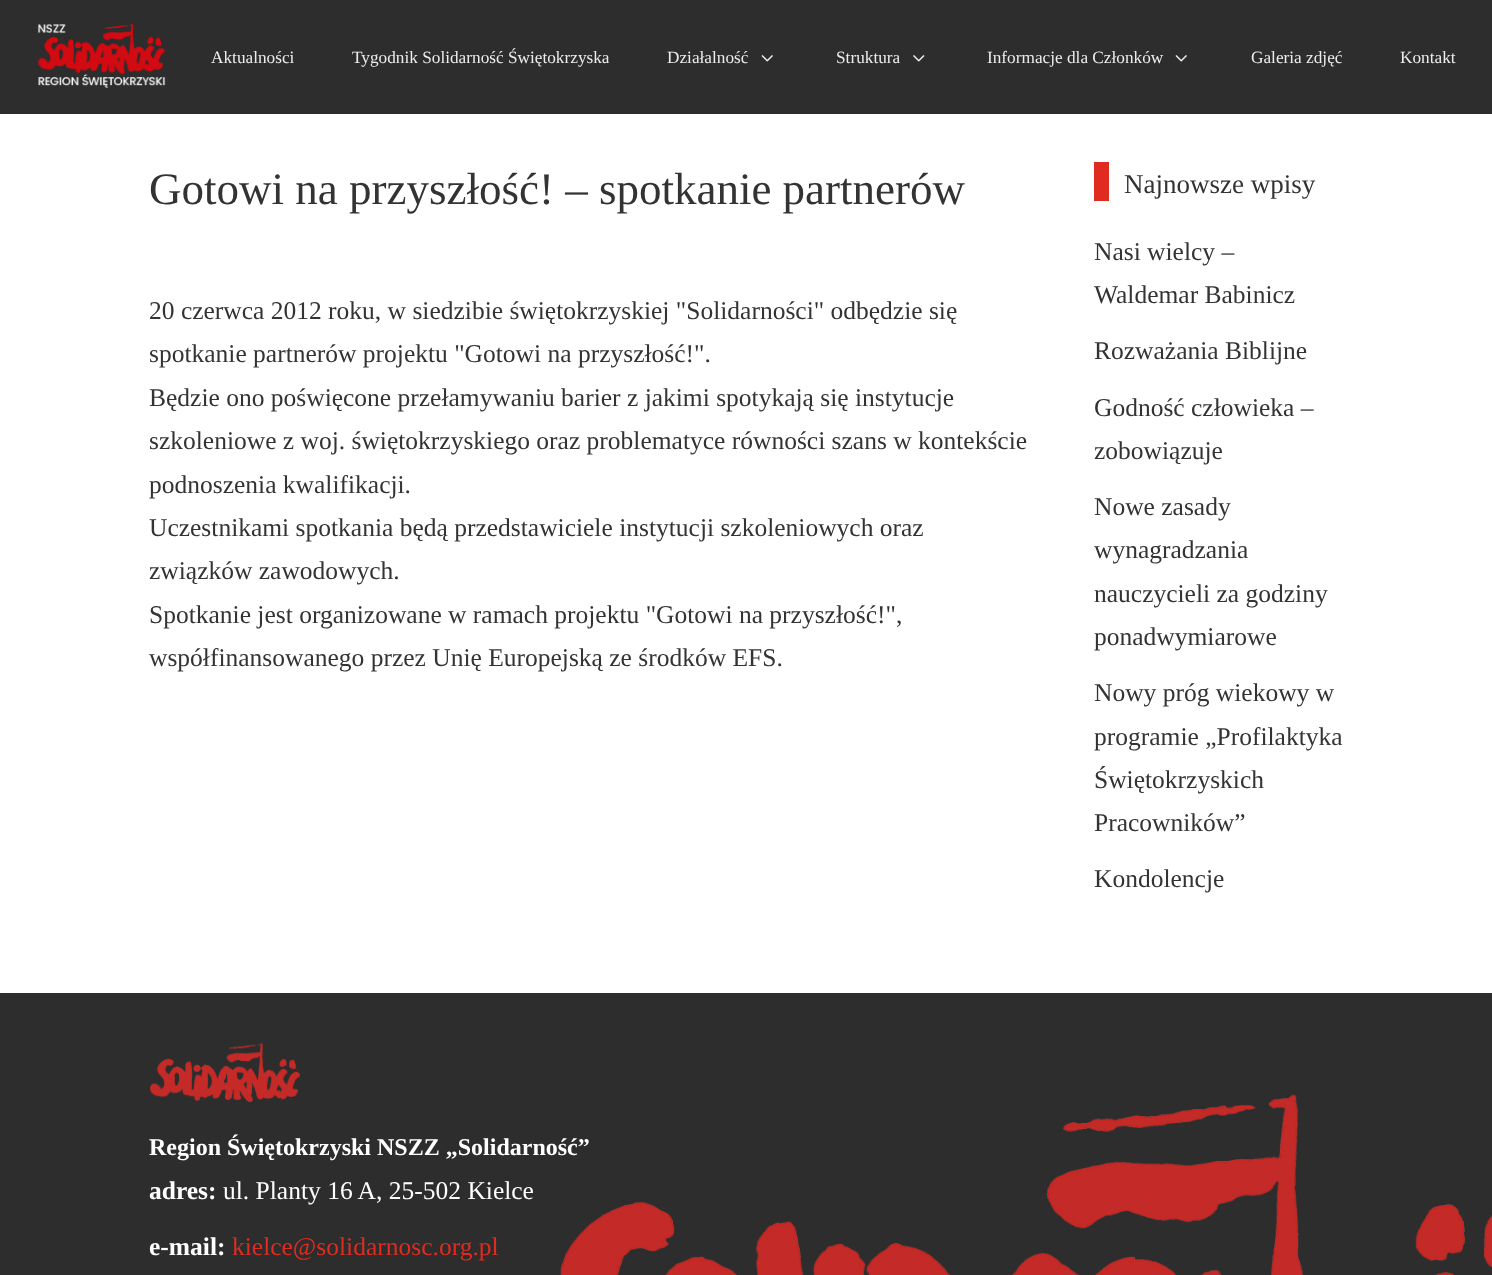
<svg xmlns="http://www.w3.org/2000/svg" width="1492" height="1275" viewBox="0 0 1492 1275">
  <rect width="100%" height="100%" fill="rgb(255,255,255)"/>
  <rect x="0" y="0" width="1492" height="114" fill="rgb(45,45,45)"/>
  <image x="37" y="23" width="129" height="65" href="pic1.png"/>
  <g font-family="Liberation Serif" font-size="17.25" fill="rgb(236,236,236)">
    <text x="211" y="63">Aktualności</text>
    <text x="352" y="63">Tygodnik Solidarność Świętokrzyska</text>
    <text x="667" y="63">Działalność</text>
  </g>
  <image x="761" y="55" width="12" height="7" href="pic2.png"/>
  <text x="836" y="63" font-family="Liberation Serif" font-size="17.25" fill="rgb(236,236,236)">Struktura</text>
  <image x="913" y="55" width="12" height="7" href="pic3.png"/>
  <text x="987" y="63" font-family="Liberation Serif" font-size="17.25" fill="rgb(236,236,236)">Informacje dla Członków</text>
  <image x="1175" y="55" width="12" height="7" href="pic2.png"/>
  <g font-family="Liberation Serif" font-size="17.25" fill="rgb(236,236,236)">
    <text x="1251" y="63">Galeria zdjęć</text>
    <text x="1400" y="63">Kontakt</text>
  </g>
  <text x="149" y="204" font-family="Liberation Serif" font-size="45" fill="rgb(51,51,51)">Gotowi na przyszłość! – spotkanie partnerów</text>
  <g font-family="Liberation Serif" font-size="25.5" fill="rgb(51,51,51)">
    <text>
      <tspan x="149" y="319">20 czerwca 2012 roku, w siedzibie świętokrzyskiej "Solidarności" odbędzie się</tspan>
      <tspan x="149" y="362">spotkanie partnerów projektu "Gotowi na przyszłość!".</tspan>
      <tspan x="149" y="406">Będzie ono poświęcone przełamywaniu barier z jakimi spotykają się instytucje</tspan>
      <tspan x="149" y="449">szkoleniowe z woj. świętokrzyskiego oraz problematyce równości szans w kontekście</tspan>
      <tspan x="149" y="493">podnoszenia kwalifikacji.</tspan>
      <tspan x="149" y="536">Uczestnikami spotkania będą przedstawiciele instytucji szkoleniowych oraz</tspan>
      <tspan x="149" y="579">związków zawodowych.</tspan>
      <tspan x="149" y="623">Spotkanie jest organizowane w ramach projektu "Gotowi na przyszłość!",</tspan>
      <tspan x="149" y="666">współfinansowanego przez Unię Europejską ze środków EFS.</tspan>
    </text>
  </g>
  <rect x="1094" y="162" width="15" height="39" fill="rgb(224,43,32)"/>
  <text x="1124" y="193" font-family="Liberation Serif" font-size="27" fill="rgb(51,51,51)">Najnowsze wpisy</text>
  <g font-family="Liberation Serif" font-size="25.5" fill="rgb(51,51,51)">
    <text>
      <tspan x="1094" y="260">Nasi wielcy –</tspan>
      <tspan x="1094" y="303">Waldemar Babinicz</tspan>
    </text>
    <text x="1094" y="359">Rozważania Biblijne</text>
    <text>
      <tspan x="1094" y="416">Godność człowieka –</tspan>
      <tspan x="1094" y="459">zobowiązuje</tspan>
    </text>
    <text>
      <tspan x="1094" y="515">Nowe zasady</tspan>
      <tspan x="1094" y="558">wynagradzania</tspan>
      <tspan x="1094" y="602">nauczycieli za godziny</tspan>
      <tspan x="1094" y="645">ponadwymiarowe</tspan>
    </text>
    <text>
      <tspan x="1094" y="701">Nowy próg wiekowy w</tspan>
      <tspan x="1094" y="745">programie „Profilaktyka</tspan>
      <tspan x="1094" y="788">Świętokrzyskich</tspan>
      <tspan x="1094" y="831">Pracowników”</tspan>
    </text>
    <text x="1094" y="887">Kondolencje</text>
  </g>
  <rect x="0" y="993" width="1492" height="282" fill="rgb(45,45,45)"/>
  <image x="560" y="1094" width="932" height="181" href="pic4.png"/>
  <image x="150" y="1043" width="150" height="59" href="pic5.png"/>
  <text x="149" y="1155" font-family="Liberation Serif" font-size="24" font-weight="bold" fill="rgb(255,255,255)">Region Świętokrzyski NSZZ „Solidarność”</text>
  <text x="149" y="1199" font-family="Liberation Serif" font-size="25.5" font-weight="bold" fill="rgb(255,255,255)">adres:</text>
  <text x="223" y="1199" font-family="Liberation Serif" font-size="25.5" fill="rgb(255,255,255)">ul. Planty 16 A, 25-502 Kielce</text>
  <text x="149" y="1255" font-family="Liberation Serif" font-size="25.5" font-weight="bold" fill="rgb(255,255,255)">e-mail:</text>
  <text x="232" y="1255" font-family="Liberation Serif" font-size="25.5" fill="rgb(224,43,32)">kielce@solidarnosc.org.pl</text>
</svg>
